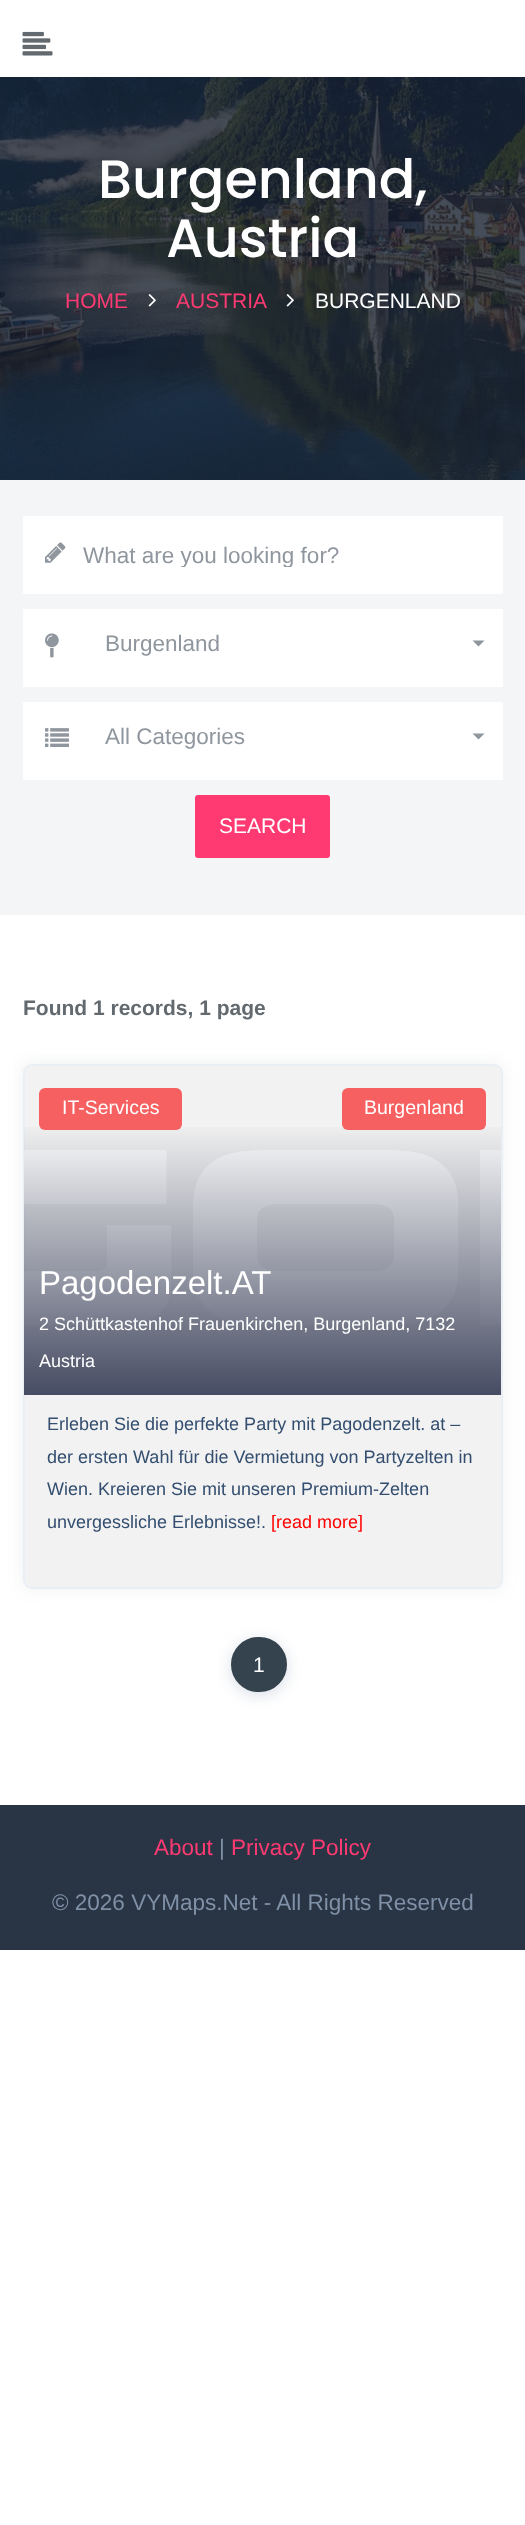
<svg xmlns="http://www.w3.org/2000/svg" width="525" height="2525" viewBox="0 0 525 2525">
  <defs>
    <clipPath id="clip1"><rect x="83" y="542" width="402" height="25"/></clipPath>
    <linearGradient id="g1" gradientUnits="userSpaceOnUse" x1="263" y1="1065" x2="263" y2="1395"><stop offset="0.17" stop-color="rgb(70,76,99)" stop-opacity="0"/><stop offset="1" stop-color="rgb(70,76,99)"/></linearGradient>
  </defs>
  <rect width="100%" height="100%" fill="rgb(255,255,255)"/>
  <image x="22" y="31" width="31" height="25" href="pic1.png"/>
  <image x="0" y="77" width="525" height="403" href="pic2.png"/>
  <g font-family="Poppins" font-size="54" font-weight="500" fill="rgb(255,255,255)">
    <text x="98" y="198">Burgenland,</text>
    <text x="166" y="257">Austria</text>
  </g>
  <text x="65" y="308" font-family="Liberation Sans" font-size="21" fill="rgb(255,58,114)">HOME</text>
  <image x="148" y="294" width="8" height="13" href="pic3.png"/>
  <text x="176" y="308" font-family="Liberation Sans" font-size="21" fill="rgb(255,58,114)">AUSTRIA</text>
  <image x="286" y="294" width="8" height="13" href="pic4.png"/>
  <text x="315" y="308" font-family="Liberation Sans" font-size="21" fill="rgb(255,255,255)">BURGENLAND</text>
  <rect x="0" y="480" width="525" height="435" fill="rgb(244,245,247)"/>
  <rect x="23" y="516" width="480" height="78" fill="rgb(255,255,255)"/>
  <image x="45" y="542" width="21" height="21" href="pic5.png"/>
  <g clip-path="url(#clip1)">
    <text x="83" y="563" font-family="Liberation Sans" font-size="22.5" fill="rgb(144,150,158)">What are you looking for?</text>
  </g>
  <rect x="23" y="609" width="480" height="78" fill="rgb(255,255,255)"/>
  <image x="45" y="633" width="14" height="25" href="pic6.png"/>
  <text x="105" y="651" font-family="Liberation Sans" font-size="22.5" fill="rgb(144,150,158)">Burgenland</text>
  <path d="M472.5 640.5H484.5L478.5 646.5Z" fill="rgb(144,150,158)"/>
  <rect x="23" y="702" width="480" height="78" fill="rgb(255,255,255)"/>
  <image x="45" y="728" width="24" height="19" href="pic7.png"/>
  <text x="105" y="744" font-family="Liberation Sans" font-size="22.5" fill="rgb(144,150,158)">All Categories</text>
  <path d="M472.5 733.5H484.5L478.5 739.5Z" fill="rgb(144,150,158)"/>
  <rect x="196" y="796" width="133" height="61" rx="2" fill="rgb(255,58,114)" stroke="rgb(255,58,114)" stroke-width="2"/>
  <text x="219" y="833" font-family="Liberation Sans" font-size="21" fill="rgb(255,255,255)">SEARCH</text>
  <text x="23" y="1015" font-family="Liberation Sans" font-size="21" font-weight="bold" fill="rgb(98,106,112)">Found 1 records, 1 page</text>
  <rect x="21" y="1062" width="483" height="528" rx="11" fill="rgba(71,85,95,0.08)" filter="blur(7.5px)"/>
  <rect x="24" y="1065" width="478" height="523" rx="8" fill="rgb(242,242,242)" stroke="rgb(234,239,245)" stroke-width="2"/>
  <image x="24" y="1150" width="477" height="175" href="pic8.png"/>
  <rect x="24" y="1127" width="477" height="268" fill="url(#g1)"/>
  <rect x="39" y="1088" width="143" height="42" rx="6" fill="rgb(247,96,96)"/>
  <text x="62" y="1114" font-family="Liberation Sans" font-size="19.5" fill="rgb(255,255,255)">IT-Services</text>
  <rect x="342" y="1088" width="144" height="42" rx="6" fill="rgb(247,96,96)"/>
  <text x="364" y="1114" font-family="Liberation Sans" font-size="19.5" fill="rgb(255,255,255)">Burgenland</text>
  <text x="39" y="1294" font-family="Liberation Sans" font-size="33" fill="rgb(255,255,255)">Pagodenzelt.AT</text>
  <g font-family="Liberation Sans" font-size="18" fill="rgb(255,255,255)">
    <text x="39" y="1330">2 Schüttkastenhof Frauenkirchen, Burgenland, 7132</text>
    <text x="39" y="1367">Austria</text>
  </g>
  <g font-family="Liberation Sans" font-size="18" fill="rgb(51,78,111)">
    <text>
      <tspan x="47" y="1430">Erleben Sie die perfekte Party mit Pagodenzelt. at –</tspan>
      <tspan x="47" y="1463">der ersten Wahl für die Vermietung von Partyzelten in</tspan>
      <tspan x="47" y="1495">Wien. Kreieren Sie mit unseren Premium-Zelten</tspan>
      <tspan x="47" y="1528">unvergessliche Erlebnisse!.</tspan>
    </text>
  </g>
  <text x="271" y="1528" font-family="Liberation Sans" font-size="18" fill="rgb(255,0,0)">[read more]</text>
  <rect x="231" y="1640" width="56" height="55" rx="27.5" fill="rgb(216,221,230)" filter="blur(7.5px)"/>
  <rect x="232" y="1638" width="54" height="53" rx="26.5" fill="rgb(53,67,78)" stroke="rgb(53,67,78)" stroke-width="2"/>
  <text x="253" y="1672" font-family="Liberation Sans" font-size="21" fill="rgb(255,255,255)">1</text>
  <rect x="0" y="1805" width="525" height="145" fill="rgb(41,52,68)"/>
  <text x="154" y="1855" font-family="Liberation Sans" font-size="22.5" fill="rgb(255,58,114)">About</text>
  <text x="219" y="1855" font-family="Liberation Sans" font-size="22.5" fill="rgb(127,144,167)">|</text>
  <text x="231" y="1855" font-family="Liberation Sans" font-size="22.5" fill="rgb(255,58,114)">Privacy Policy</text>
  <text x="52" y="1910" font-family="Liberation Sans" font-size="22.5" fill="rgb(127,144,167)">© 2026 VYMaps.Net - All Rights Reserved</text>
</svg>
